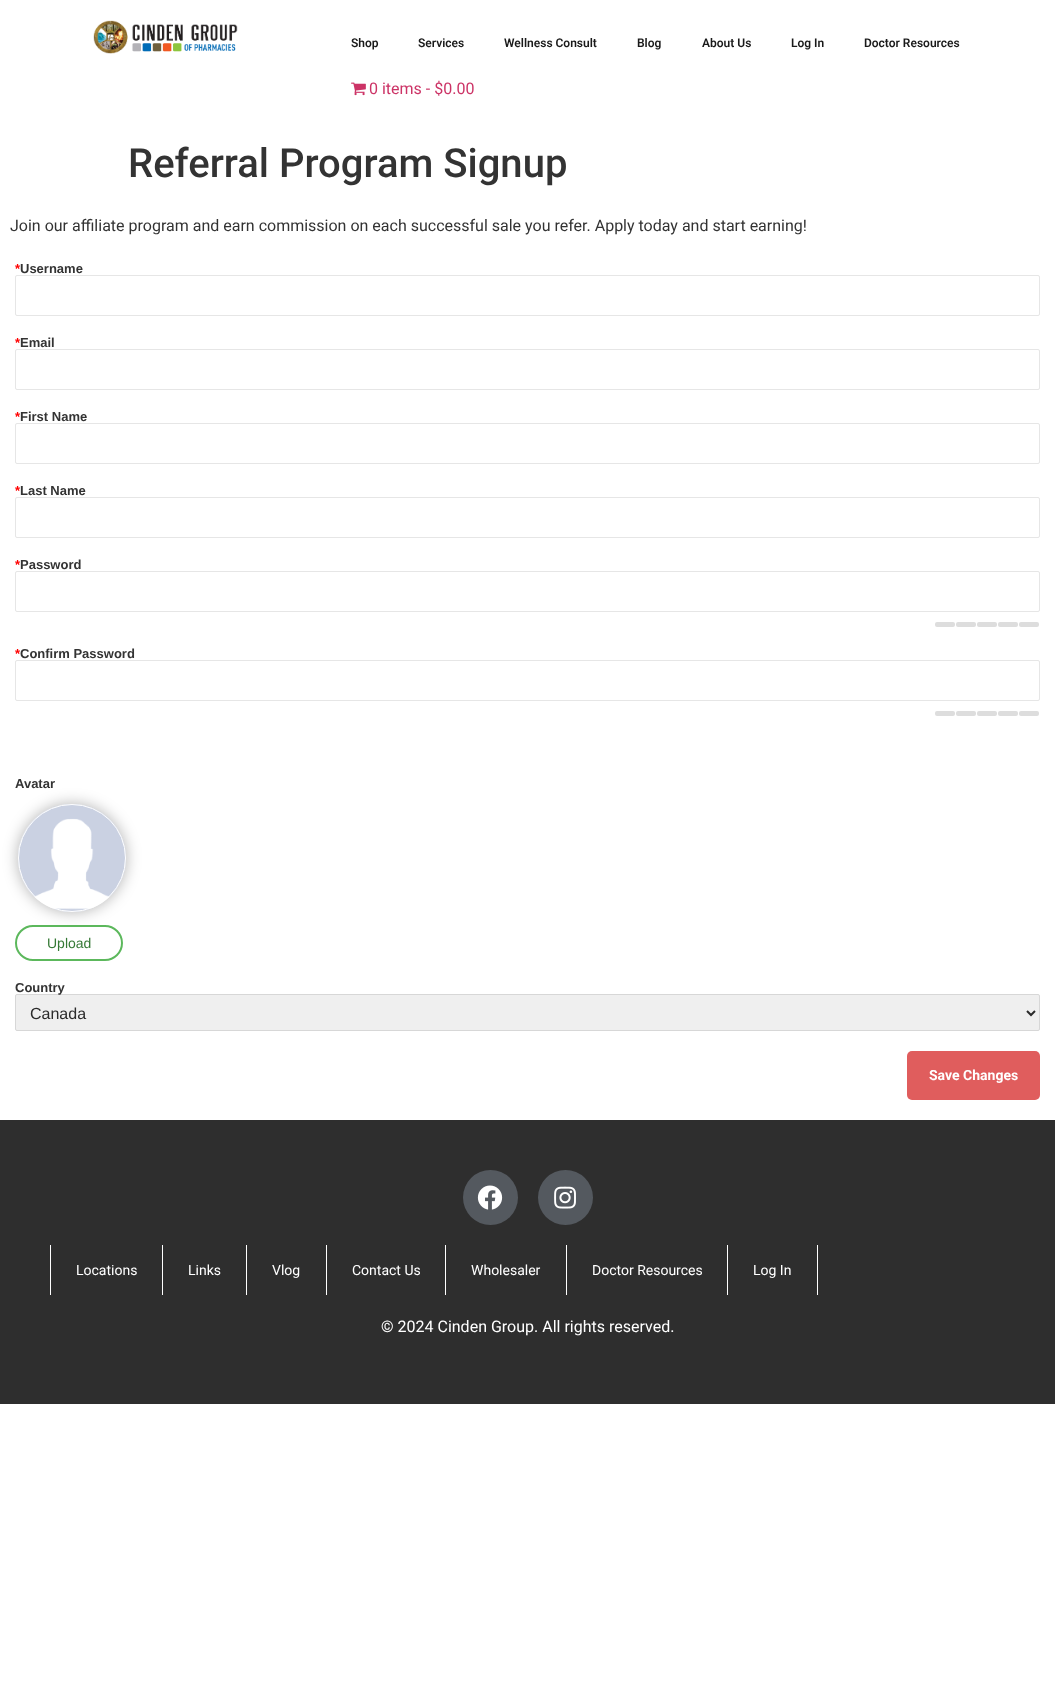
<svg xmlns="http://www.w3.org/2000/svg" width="1055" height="1699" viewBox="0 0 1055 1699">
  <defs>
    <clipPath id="clip1"><path d="M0 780H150V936H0ZM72 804C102 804 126 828 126 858C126 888 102 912 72 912C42 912 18 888 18 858C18 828 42 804 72 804Z" clip-rule="evenodd"/></clipPath>
  </defs>
  <rect width="100%" height="100%" fill="rgb(255,255,255)"/>
  <image x="93" y="20" width="145" height="34" href="pic1.png"/>
  <g font-family="Roboto" font-size="12" font-weight="600" fill="rgb(26,26,26)">
    <text x="351" y="47">Shop</text>
    <text x="418" y="47">Services</text>
    <text x="504" y="47">Wellness Consult</text>
    <text x="637" y="47">Blog</text>
    <text x="702" y="47">About Us</text>
    <text x="791" y="47">Log In</text>
    <text x="864" y="47">Doctor Resources</text>
  </g>
  <image x="351" y="82" width="15" height="14" href="pic2.png"/>
  <text x="369" y="94" font-family="Roboto" font-size="16" fill="rgb(204,51,102)">0 items - $0.00</text>
  <text x="128" y="177" font-family="Roboto" font-size="40" font-weight="500" fill="rgb(51,51,51)">Referral Program Signup</text>
  <text x="10" y="231" font-family="Roboto" font-size="16" fill="rgb(51,51,51)">Join our affiliate program and earn commission on each successful sale you refer. Apply today and start earning!</text>
  <text x="15" y="273" font-family="Liberation Sans" font-size="13" font-weight="bold" fill="rgb(255,0,0)">*</text>
  <text x="20" y="273" font-family="Liberation Sans" font-size="13" font-weight="bold" fill="rgb(51,51,51)">Username</text>
  <rect x="15.5" y="275.5" width="1024" height="40" rx="1.5" fill="none" stroke="rgb(230,230,230)"/>
  <text x="15" y="347" font-family="Liberation Sans" font-size="13" font-weight="bold" fill="rgb(255,0,0)">*</text>
  <text x="20" y="347" font-family="Liberation Sans" font-size="13" font-weight="bold" fill="rgb(51,51,51)">Email</text>
  <rect x="15.5" y="349.5" width="1024" height="40" rx="1.5" fill="none" stroke="rgb(230,230,230)"/>
  <text x="15" y="421" font-family="Liberation Sans" font-size="13" font-weight="bold" fill="rgb(255,0,0)">*</text>
  <text x="20" y="421" font-family="Liberation Sans" font-size="13" font-weight="bold" fill="rgb(51,51,51)">First Name</text>
  <rect x="15.5" y="423.5" width="1024" height="40" rx="1.5" fill="none" stroke="rgb(230,230,230)"/>
  <text x="15" y="495" font-family="Liberation Sans" font-size="13" font-weight="bold" fill="rgb(255,0,0)">*</text>
  <text x="20" y="495" font-family="Liberation Sans" font-size="13" font-weight="bold" fill="rgb(51,51,51)">Last Name</text>
  <rect x="15.5" y="497.5" width="1024" height="40" rx="1.5" fill="none" stroke="rgb(230,230,230)"/>
  <text x="15" y="569" font-family="Liberation Sans" font-size="13" font-weight="bold" fill="rgb(255,0,0)">*</text>
  <text x="20" y="569" font-family="Liberation Sans" font-size="13" font-weight="bold" fill="rgb(51,51,51)">Password</text>
  <rect x="15.5" y="571.5" width="1024" height="40" rx="1.5" fill="none" stroke="rgb(230,230,230)"/>
  <rect x="935" y="622" width="20" height="5" rx="2" fill="rgb(221,221,221)"/>
  <rect x="956" y="622" width="20" height="5" rx="2" fill="rgb(221,221,221)"/>
  <rect x="977" y="622" width="20" height="5" rx="2" fill="rgb(221,221,221)"/>
  <rect x="998" y="622" width="20" height="5" rx="2" fill="rgb(221,221,221)"/>
  <rect x="1019" y="622" width="20" height="5" rx="2" fill="rgb(221,221,221)"/>
  <text x="15" y="658" font-family="Liberation Sans" font-size="13" font-weight="bold" fill="rgb(255,0,0)">*</text>
  <text x="20" y="658" font-family="Liberation Sans" font-size="13" font-weight="bold" fill="rgb(51,51,51)">Confirm Password</text>
  <rect x="15.5" y="660.5" width="1024" height="40" rx="1.5" fill="none" stroke="rgb(230,230,230)"/>
  <rect x="935" y="711" width="20" height="5" rx="2" fill="rgb(221,221,221)"/>
  <rect x="956" y="711" width="20" height="5" rx="2" fill="rgb(221,221,221)"/>
  <rect x="977" y="711" width="20" height="5" rx="2" fill="rgb(221,221,221)"/>
  <rect x="998" y="711" width="20" height="5" rx="2" fill="rgb(221,221,221)"/>
  <rect x="1019" y="711" width="20" height="5" rx="2" fill="rgb(221,221,221)"/>
  <g clip-path="url(#clip1)">
    <rect x="18" y="804" width="108" height="108" rx="54" fill="rgba(0,0,0,0.3)" filter="blur(7.5px)"/>
  </g>
  <text x="15" y="788" font-family="Liberation Sans" font-size="13" font-weight="bold" fill="rgb(51,51,51)">Avatar</text>
  <image x="18" y="804" width="108" height="108" href="pic3.png"/>
  <circle cx="72" cy="858" r="53.5" fill="none" stroke="rgb(255,255,255)"/>
  <rect x="16" y="926" width="106" height="34" rx="17" fill="none" stroke="rgb(92,184,92)" stroke-width="2"/>
  <text x="47" y="948" font-family="Liberation Sans" font-size="14" fill="rgb(53,121,53)">Upload</text>
  <rect x="15.5" y="994.5" width="1024" height="36" rx="1.5" fill="rgb(239,239,239)" stroke="rgb(215,215,215)"/>
  <text x="15" y="992" font-family="Liberation Sans" font-size="13" font-weight="bold" fill="rgb(51,51,51)">Country</text>
  <path d="M1027 1011L1031 1015L1035 1011" fill="none" stroke="rgb(43,43,43)" stroke-width="2"/>
  <text x="30" y="1019" font-family="Liberation Sans" font-size="16" fill="rgb(43,43,43)">Canada</text>
  <rect x="907" y="1051" width="133" height="49" rx="5" fill="rgb(224,93,93)"/>
  <text x="929" y="1080" font-family="Roboto" font-size="14" font-weight="bold" fill="rgb(255,255,255)">Save Changes</text>
  <rect x="0" y="1120" width="1055" height="284" fill="rgb(46,46,46)"/>
  <circle cx="490.5" cy="1197.5" r="27.5" fill="rgb(84,89,95)"/>
  <image x="477" y="1185" width="26" height="25" href="pic4.png"/>
  <circle cx="565.5" cy="1197.5" r="27.5" fill="rgb(84,89,95)"/>
  <image x="554" y="1186" width="22" height="23" href="pic5.png"/>
  <rect x="50" y="1245" width="1" height="50" fill="rgb(255,255,255)"/>
  <text x="76" y="1275" font-family="Roboto" font-size="14" fill="rgb(255,255,255)">Locations</text>
  <rect x="162" y="1245" width="1" height="50" fill="rgb(255,255,255)"/>
  <text x="188" y="1275" font-family="Roboto" font-size="14" fill="rgb(255,255,255)">Links</text>
  <rect x="246" y="1245" width="1" height="50" fill="rgb(255,255,255)"/>
  <text x="272" y="1275" font-family="Roboto" font-size="14" fill="rgb(255,255,255)">Vlog</text>
  <rect x="326" y="1245" width="1" height="50" fill="rgb(255,255,255)"/>
  <text x="352" y="1275" font-family="Roboto" font-size="14" fill="rgb(255,255,255)">Contact Us</text>
  <rect x="445" y="1245" width="1" height="50" fill="rgb(255,255,255)"/>
  <text x="471" y="1275" font-family="Roboto" font-size="14" fill="rgb(255,255,255)">Wholesaler</text>
  <rect x="566" y="1245" width="1" height="50" fill="rgb(255,255,255)"/>
  <text x="592" y="1275" font-family="Roboto" font-size="14" fill="rgb(255,255,255)">Doctor Resources</text>
  <rect x="817" y="1245" width="1" height="50" fill="rgb(255,255,255)"/>
  <rect x="727" y="1245" width="1" height="50" fill="rgb(255,255,255)"/>
  <text x="753" y="1275" font-family="Roboto" font-size="14" fill="rgb(255,255,255)">Log In</text>
  <text x="381" y="1332" font-family="Roboto" font-size="16" fill="rgb(255,255,255)">© 2024 Cinden Group. All rights reserved.</text>
</svg>
